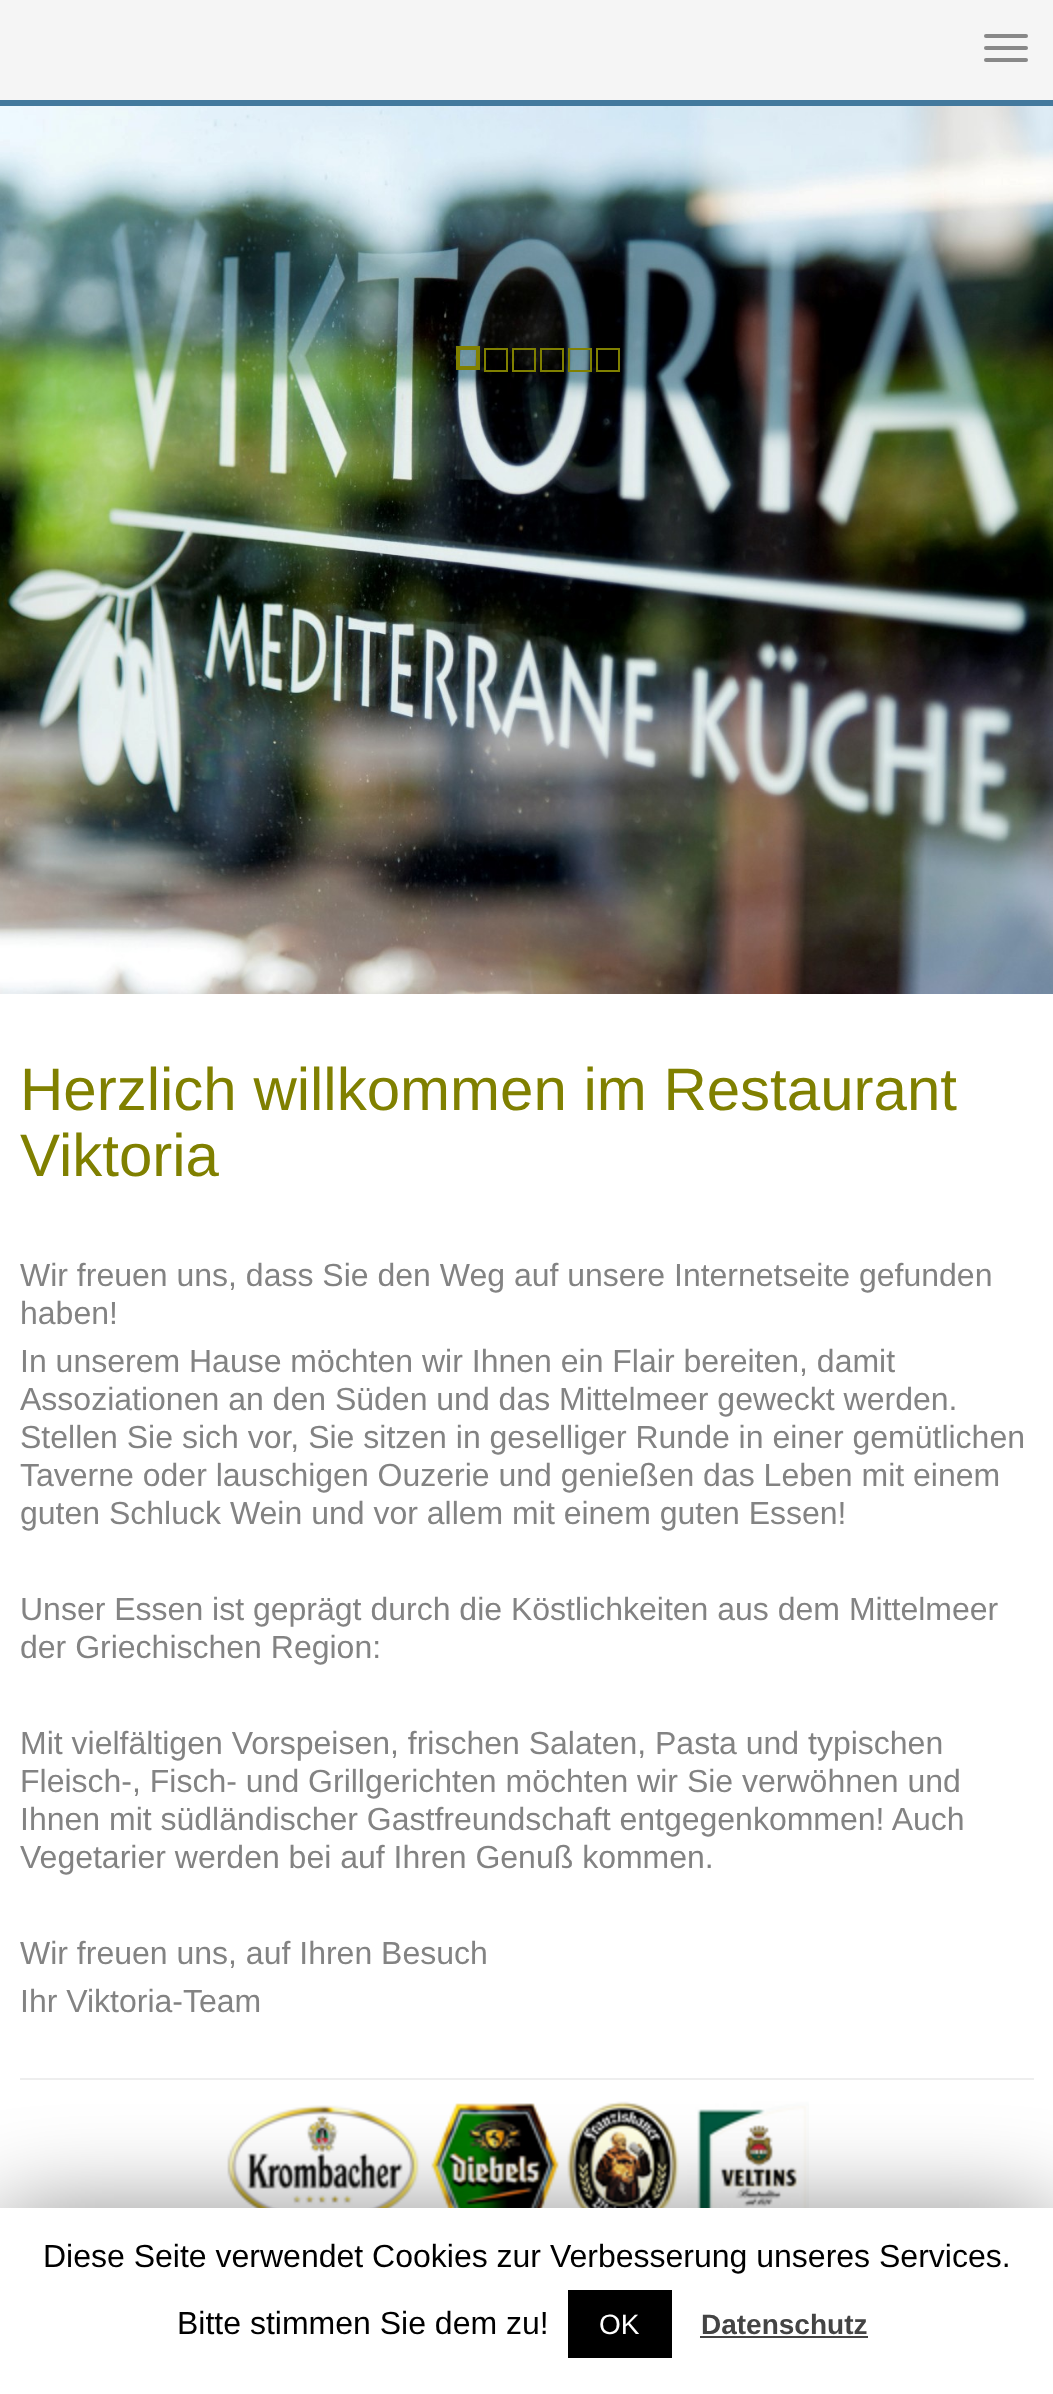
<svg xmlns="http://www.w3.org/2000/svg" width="1053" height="2394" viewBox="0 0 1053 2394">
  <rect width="100%" height="100%" fill="rgb(255,255,255)"/>
  <rect x="0" y="0" width="1053" height="100" fill="rgb(245,245,245)"/>
  <rect x="984" y="34" width="44" height="4" rx="2" fill="rgb(136,136,136)"/>
  <rect x="984" y="46" width="44" height="4" rx="2" fill="rgb(136,136,136)"/>
  <rect x="984" y="58" width="44" height="4" rx="2" fill="rgb(136,136,136)"/>
  <rect x="0" y="100" width="1053" height="6" fill="rgb(67,121,157)"/>
  <image x="0" y="106" width="1053" height="888" href="pic1.png"/>
  <rect x="458" y="348" width="20" height="20" fill="none" stroke="rgb(128,128,0)" stroke-width="4"/>
  <rect x="485" y="349" width="22" height="22" fill="none" stroke="rgb(128,128,0)" stroke-width="2"/>
  <rect x="513" y="349" width="22" height="22" fill="none" stroke="rgb(128,128,0)" stroke-width="2"/>
  <rect x="541" y="349" width="22" height="22" fill="none" stroke="rgb(128,128,0)" stroke-width="2"/>
  <rect x="569" y="349" width="22" height="22" fill="none" stroke="rgb(128,128,0)" stroke-width="2"/>
  <rect x="597" y="349" width="22" height="22" fill="none" stroke="rgb(128,128,0)" stroke-width="2"/>
  <g font-family="Liberation Sans" font-size="60" fill="rgb(128,128,0)">
    <text>
      <tspan x="20" y="1110">Herzlich willkommen im Restaurant</tspan>
      <tspan x="20" y="1176">Viktoria</tspan>
    </text>
  </g>
  <g font-family="Liberation Sans" font-size="32" fill="rgb(131,131,131)">
    <text>
      <tspan x="20" y="1286">Wir freuen uns, dass Sie den Weg auf unsere Internetseite gefunden</tspan>
      <tspan x="20" y="1324">haben!</tspan>
      <tspan x="20" y="1372">In unserem Hause möchten wir Ihnen ein Flair bereiten, damit</tspan>
      <tspan x="20" y="1410">Assoziationen an den Süden und das Mittelmeer geweckt werden.</tspan>
      <tspan x="20" y="1448">Stellen Sie sich vor, Sie sitzen in geselliger Runde in einer gemütlichen</tspan>
      <tspan x="20" y="1486">Taverne oder lauschigen Ouzerie und genießen das Leben mit einem</tspan>
      <tspan x="20" y="1524">guten Schluck Wein und vor allem mit einem guten Essen!</tspan>
    </text>
    <text>
      <tspan x="20" y="1620">Unser Essen ist geprägt durch die Köstlichkeiten aus dem Mittelmeer</tspan>
      <tspan x="20" y="1658">der Griechischen Region:</tspan>
    </text>
    <text>
      <tspan x="20" y="1754">Mit vielfältigen Vorspeisen, frischen Salaten, Pasta und typischen</tspan>
      <tspan x="20" y="1792">Fleisch-, Fisch- und Grillgerichten möchten wir Sie verwöhnen und</tspan>
      <tspan x="20" y="1830">Ihnen mit südländischer Gastfreundschaft entgegenkommen! Auch</tspan>
      <tspan x="20" y="1868">Vegetarier werden bei auf Ihren Genuß kommen.</tspan>
    </text>
    <text>
      <tspan x="20" y="1964">Wir freuen uns, auf Ihren Besuch</tspan>
      <tspan x="20" y="2012">Ihr Viktoria-Team</tspan>
    </text>
  </g>
  <rect x="20" y="2078" width="1014" height="2" fill="rgb(238,238,238)"/>
  <image x="227" y="2101" width="582" height="107" href="pic2.png"/>
  <rect x="0" y="2218" width="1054" height="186" fill="rgba(0,0,0,0.5)" filter="blur(50px)"/>
  <rect x="0" y="2208" width="1053" height="186" fill="rgb(255,255,255)"/>
  <g font-family="Liberation Sans" font-size="32" fill="rgb(0,0,0)">
    <text x="43" y="2267">Diese Seite verwendet Cookies zur Verbesserung unseres Services.</text>
    <text x="177" y="2334">Bitte stimmen Sie dem zu!</text>
  </g>
  <rect x="568" y="2290" width="104" height="68" fill="rgb(0,0,0)"/>
  <text x="599" y="2334" font-family="Liberation Sans" font-size="28" fill="rgb(255,255,255)">OK</text>
  <text x="701" y="2334" font-family="Liberation Sans" font-size="28" font-weight="bold" fill="rgb(68,68,68)">Datenschutz</text>
  <rect x="700" y="2336" width="168" height="2" fill="rgb(68,68,68)"/>
</svg>
